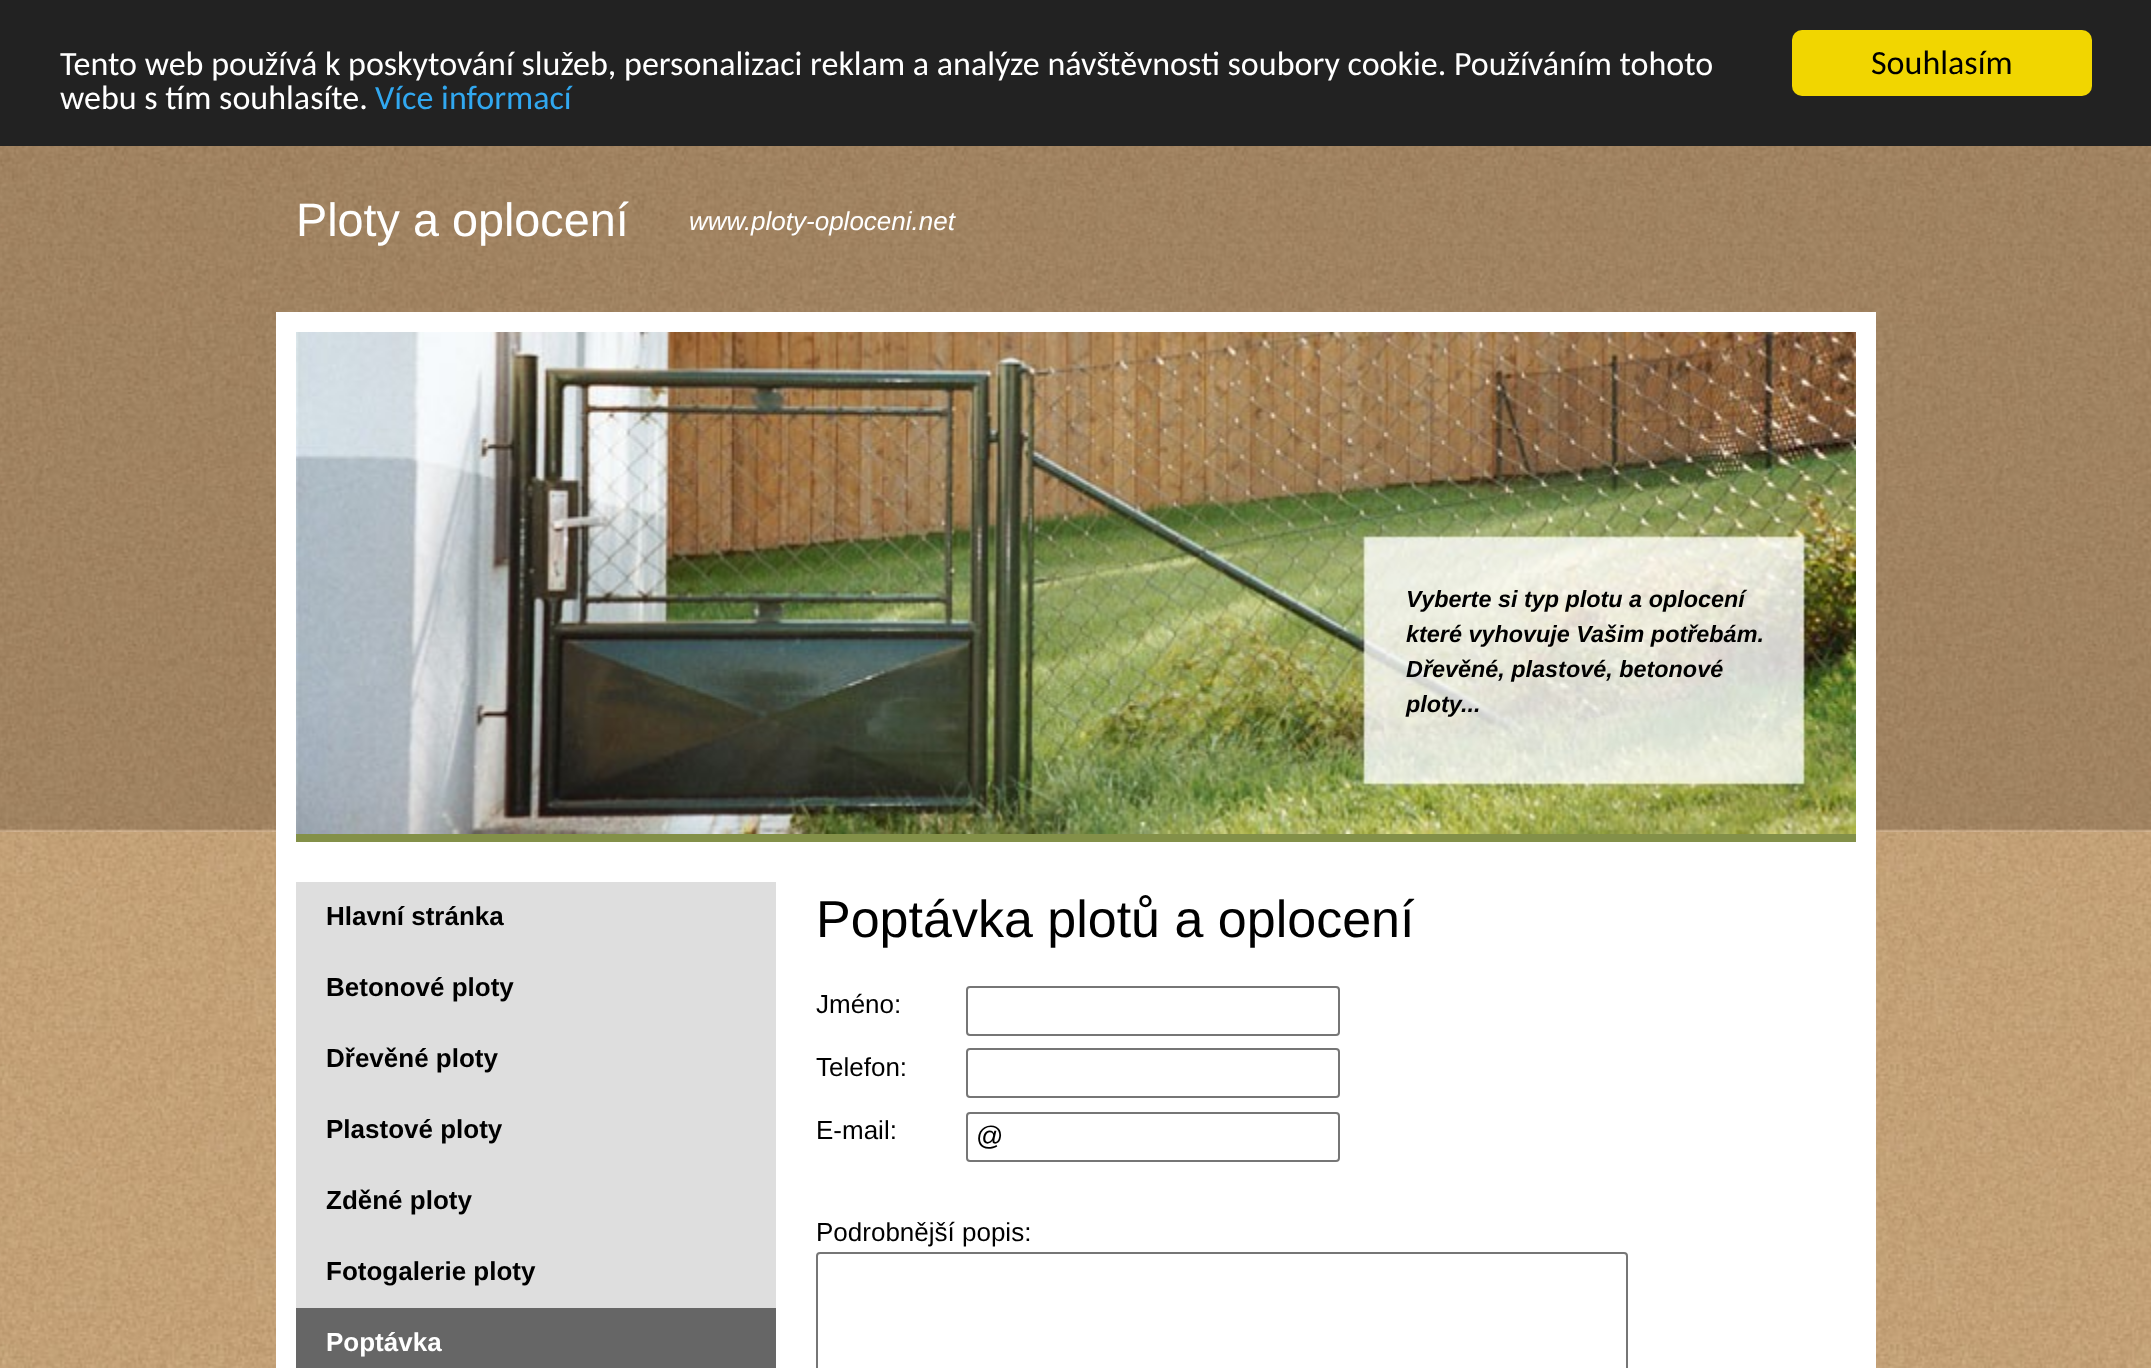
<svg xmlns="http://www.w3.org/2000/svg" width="2151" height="1368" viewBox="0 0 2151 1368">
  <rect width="100%" height="100%" fill="rgb(255,255,255)"/>
  <image x="0" y="832" width="2151" height="536" href="pic1.png"/>
  <rect x="0" y="0" width="2151" height="146" fill="rgb(34,34,34)"/>
  <g font-family="Carlito" font-size="34" fill="rgb(255,255,255)">
    <text>
      <tspan x="60" y="75">Tento web používá k poskytování služeb, personalizaci reklam a analýze návštěvnosti soubory cookie. Používáním tohoto</tspan>
      <tspan x="60" y="109">webu s tím souhlasíte.</tspan>
    </text>
  </g>
  <text x="375" y="109" font-family="Carlito" font-size="34" fill="rgb(49,168,240)">Více informací</text>
  <rect x="1792" y="30" width="300" height="66" rx="10" fill="rgb(241,214,0)"/>
  <text x="1871" y="74" font-family="Carlito" font-size="34" fill="rgb(0,0,0)">Souhlasím</text>
  <image x="0" y="146" width="2151" height="686" href="pic2.png"/>
  <text x="296" y="236" font-family="Liberation Sans" font-size="46.75" fill="rgb(255,255,255)">Ploty a oplocení</text>
  <text x="689" y="230" font-family="Liberation Sans" font-size="26" font-style="italic" fill="rgb(255,255,255)">www.ploty-oploceni.net</text>
  <rect x="276" y="312" width="1600" height="1056" fill="rgb(255,255,255)"/>
  <image x="296" y="332" width="1560" height="502" href="pic3.png"/>
  <rect x="296" y="834" width="1560" height="8" fill="rgb(131,144,72)"/>
  <g font-family="Liberation Sans" font-size="23.4" font-weight="bold" font-style="italic" fill="rgb(0,0,0)">
    <text>
      <tspan x="1406" y="607">Vyberte si typ plotu a oplocení</tspan>
      <tspan x="1406" y="642">které vyhovuje Vašim potřebám.</tspan>
      <tspan x="1406" y="677">Dřevěné, plastové, betonové</tspan>
      <tspan x="1406" y="712">ploty...</tspan>
    </text>
  </g>
  <rect x="296" y="882" width="480" height="426" fill="rgb(222,222,222)"/>
  <g font-family="Liberation Sans" font-size="26" font-weight="bold" fill="rgb(0,0,0)">
    <text x="326" y="925">Hlavní stránka</text>
    <text x="326" y="996">Betonové ploty</text>
    <text x="326" y="1067">Dřevěné ploty</text>
    <text x="326" y="1138">Plastové ploty</text>
    <text x="326" y="1209">Zděné ploty</text>
    <text x="326" y="1280">Fotogalerie ploty</text>
  </g>
  <rect x="296" y="1308" width="480" height="60" fill="rgb(102,102,102)"/>
  <text x="326" y="1351" font-family="Liberation Sans" font-size="26" font-weight="bold" fill="rgb(255,255,255)">Poptávka</text>
  <text x="816" y="937" font-family="Liberation Sans" font-size="52" fill="rgb(0,0,0)">Poptávka plotů a oplocení</text>
  <text x="816" y="1013" font-family="Liberation Sans" font-size="26" fill="rgb(0,0,0)">Jméno:</text>
  <rect x="967" y="987" width="372" height="48" rx="3" fill="none" stroke="rgb(118,118,118)" stroke-width="2"/>
  <text x="816" y="1076" font-family="Liberation Sans" font-size="26" fill="rgb(0,0,0)">Telefon:</text>
  <rect x="967" y="1049" width="372" height="48" rx="3" fill="none" stroke="rgb(118,118,118)" stroke-width="2"/>
  <text x="816" y="1139" font-family="Liberation Sans" font-size="26" fill="rgb(0,0,0)">E-mail:</text>
  <rect x="967" y="1113" width="372" height="48" rx="3" fill="none" stroke="rgb(118,118,118)" stroke-width="2"/>
  <text x="976" y="1145" font-family="Liberation Sans" font-size="27" fill="rgb(0,0,0)">@</text>
  <text x="816" y="1241" font-family="Liberation Sans" font-size="26" fill="rgb(0,0,0)">Podrobnější popis:</text>
  <rect x="817" y="1253" width="810" height="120" rx="3" fill="none" stroke="rgb(118,118,118)" stroke-width="2"/>
</svg>
